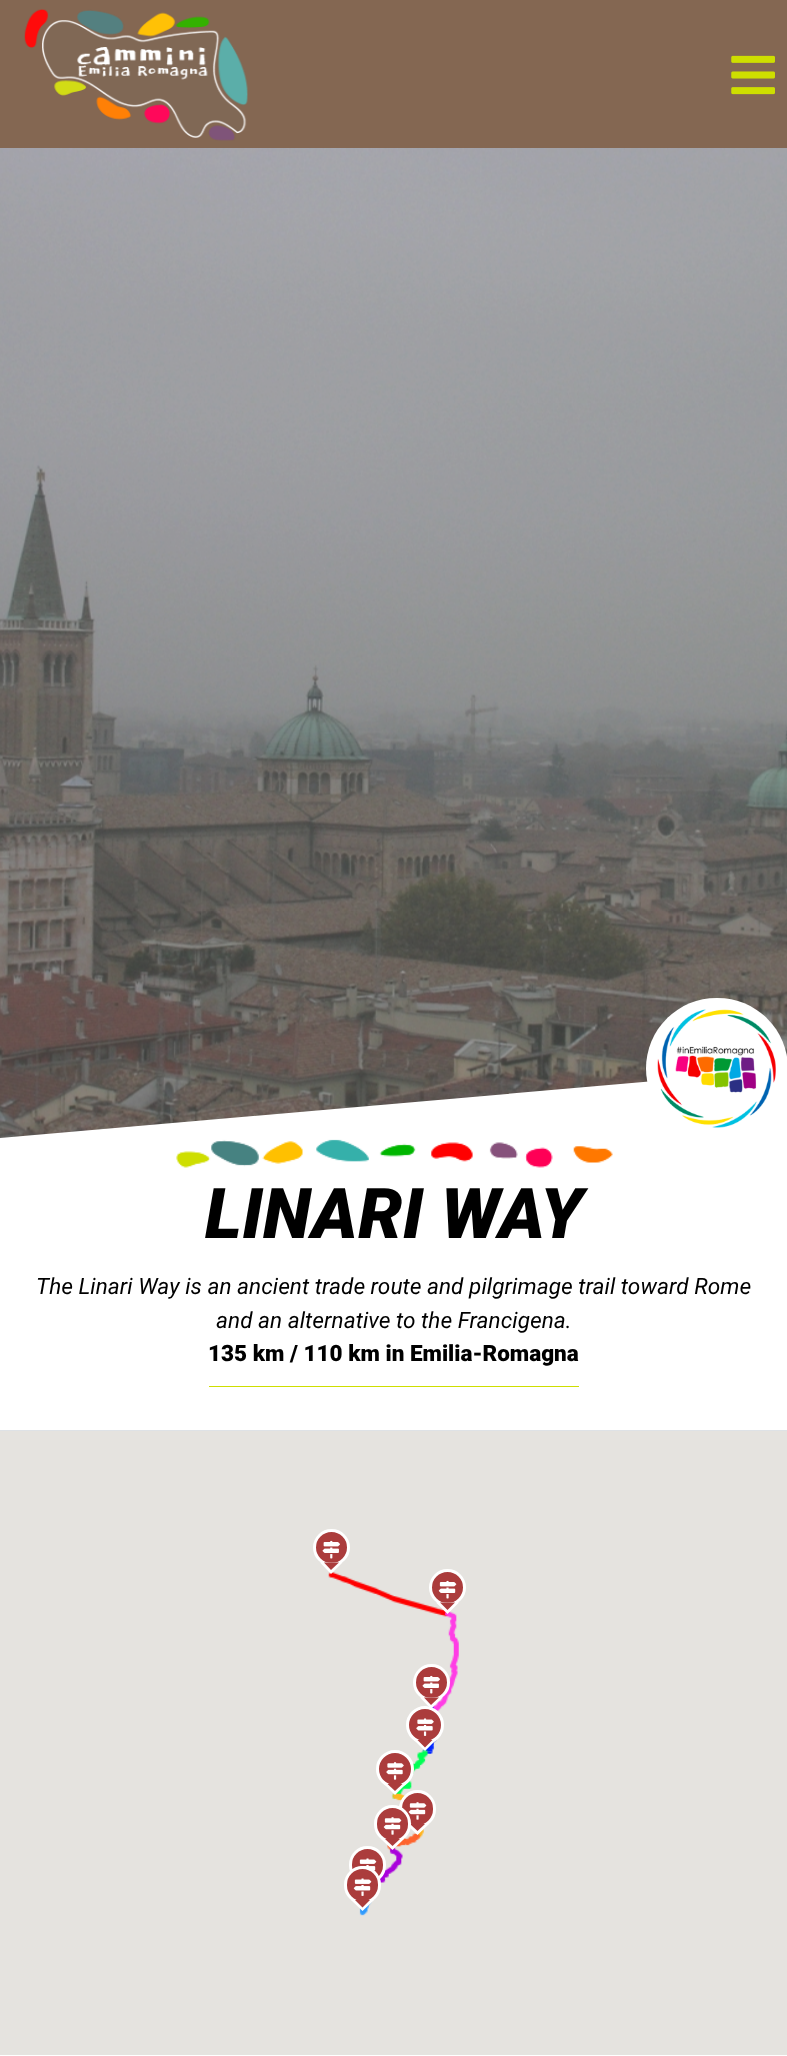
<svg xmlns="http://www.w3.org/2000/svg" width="787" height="2056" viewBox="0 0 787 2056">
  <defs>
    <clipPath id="clip1"><rect x="0" y="148" width="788" height="991"/></clipPath>
  </defs>
  <rect width="100%" height="100%" fill="rgb(255,255,255)"/>
  <rect x="0" y="0" width="787" height="148" fill="rgb(132,103,82)"/>
  <image x="24" y="9" width="224" height="132" href="pic1.png"/>
  <image x="731" y="55" width="44" height="40" href="pic2.png"/>
  <image x="0" y="148" width="787" height="991" href="pic3.png"/>
  <g clip-path="url(#clip1)">
    <path d="M0 1138L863 1063L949 2050L86 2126Z" fill="rgb(255,255,255)"/>
  </g>
  <rect x="646" y="998" width="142" height="141" rx="70.5" fill="rgb(255,255,255)"/>
  <image x="657" y="1009" width="119" height="119" href="pic4.png"/>
  <image x="176" y="1139" width="437" height="29" href="pic5.png"/>
  <text x="205" y="1238" font-family="Roboto" font-size="70" font-weight="900" font-style="italic" fill="rgb(0,0,0)">LINARI WAY</text>
  <g font-family="Roboto" font-size="22.5" font-style="italic" fill="rgb(0,0,0)">
    <text x="36" y="1294">The Linari Way is an ancient trade route and pilgrimage trail toward Rome</text>
    <text x="216" y="1328">and an alternative to the Francigena.</text>
  </g>
  <text x="208" y="1361" font-family="Roboto" font-size="22.5" font-weight="900" fill="rgb(0,0,0)">135 km / 110 km in Emilia-Romagna</text>
  <rect x="209" y="1386" width="370" height="1" fill="rgb(206,222,0)"/>
  <rect x="0" y="1430" width="787" height="1" fill="rgb(222,226,230)"/>
  <rect x="0" y="1431" width="787" height="624" fill="rgb(229,227,223)"/>
  <circle cx="331.5" cy="1547.5" r="17" fill="rgb(171,60,60)" stroke="rgb(255,255,255)" stroke-width="3"/>
  <image x="322" y="1540" width="18" height="19" href="pic6.png"/>
  <image x="359" y="1751" width="74" height="165" href="pic14.png"/>
  <image x="328" y="1572" width="131" height="180" href="pic13.png"/>
  <path d="M320 1562.5H342.5L331 1574Z" fill="rgb(255,255,255)"/>
  <path d="M324 1562.5H339L331 1570Z" fill="rgb(171,60,60)"/>
  <circle cx="447.5" cy="1587.5" r="17" fill="rgb(171,60,60)" stroke="rgb(255,255,255)" stroke-width="3"/>
  <image x="438" y="1580" width="19" height="19" href="pic7.png"/>
  <path d="M436 1602.5H459L447.5 1614Z" fill="rgb(255,255,255)"/>
  <path d="M440 1602.5H455L447.5 1610Z" fill="rgb(171,60,60)"/>
  <circle cx="431.5" cy="1682.5" r="17" fill="rgb(171,60,60)" stroke="rgb(255,255,255)" stroke-width="3"/>
  <image x="422" y="1675" width="18" height="19" href="pic6.png"/>
  <path d="M420 1697.5H442.5L431 1709Z" fill="rgb(255,255,255)"/>
  <path d="M424 1697.5H439L431 1705Z" fill="rgb(171,60,60)"/>
  <circle cx="425" cy="1725" r="17.5" fill="rgb(171,60,60)" stroke="rgb(255,255,255)" stroke-width="3"/>
  <image x="416" y="1718" width="18" height="18" href="pic8.png"/>
  <path d="M414 1740H436L425 1751Z" fill="rgb(255,255,255)"/>
  <path d="M417.5 1740H432.5L425 1747.5Z" fill="rgb(171,60,60)"/>
  <circle cx="395" cy="1769" r="17.5" fill="rgb(171,60,60)" stroke="rgb(255,255,255)" stroke-width="3"/>
  <image x="386" y="1762" width="18" height="18" href="pic9.png"/>
  <path d="M384 1784H406L395 1795Z" fill="rgb(255,255,255)"/>
  <path d="M387.5 1784H402.5L395 1791Z" fill="rgb(171,60,60)"/>
  <rect x="400.5" y="1791.5" width="34" height="35" rx="17" fill="rgb(171,60,60)" stroke="rgb(255,255,255)" stroke-width="3"/>
  <image x="408" y="1802" width="19" height="18" href="pic10.png"/>
  <path d="M406 1824H429L417.5 1835Z" fill="rgb(255,255,255)"/>
  <path d="M410 1824H425L417.5 1831Z" fill="rgb(171,60,60)"/>
  <rect x="375.5" y="1806.5" width="34" height="35" rx="17" fill="rgb(171,60,60)" stroke="rgb(255,255,255)" stroke-width="3"/>
  <image x="383" y="1817" width="19" height="18" href="pic10.png"/>
  <path d="M381 1839H404L392.5 1850Z" fill="rgb(255,255,255)"/>
  <path d="M385 1839H400L392.5 1846Z" fill="rgb(171,60,60)"/>
  <rect x="350.5" y="1847.5" width="34" height="35" rx="17" fill="rgb(171,60,60)" stroke="rgb(255,255,255)" stroke-width="3"/>
  <image x="359" y="1858" width="18" height="13" href="pic11.png"/>
  <rect x="345.5" y="1867.5" width="34" height="35" rx="17" fill="rgb(171,60,60)" stroke="rgb(255,255,255)" stroke-width="3"/>
  <image x="353" y="1878" width="19" height="18" href="pic12.png"/>
  <path d="M351 1900H374L362.5 1911Z" fill="rgb(255,255,255)"/>
  <path d="M355 1900H370L362.5 1907.5Z" fill="rgb(171,60,60)"/>
</svg>
